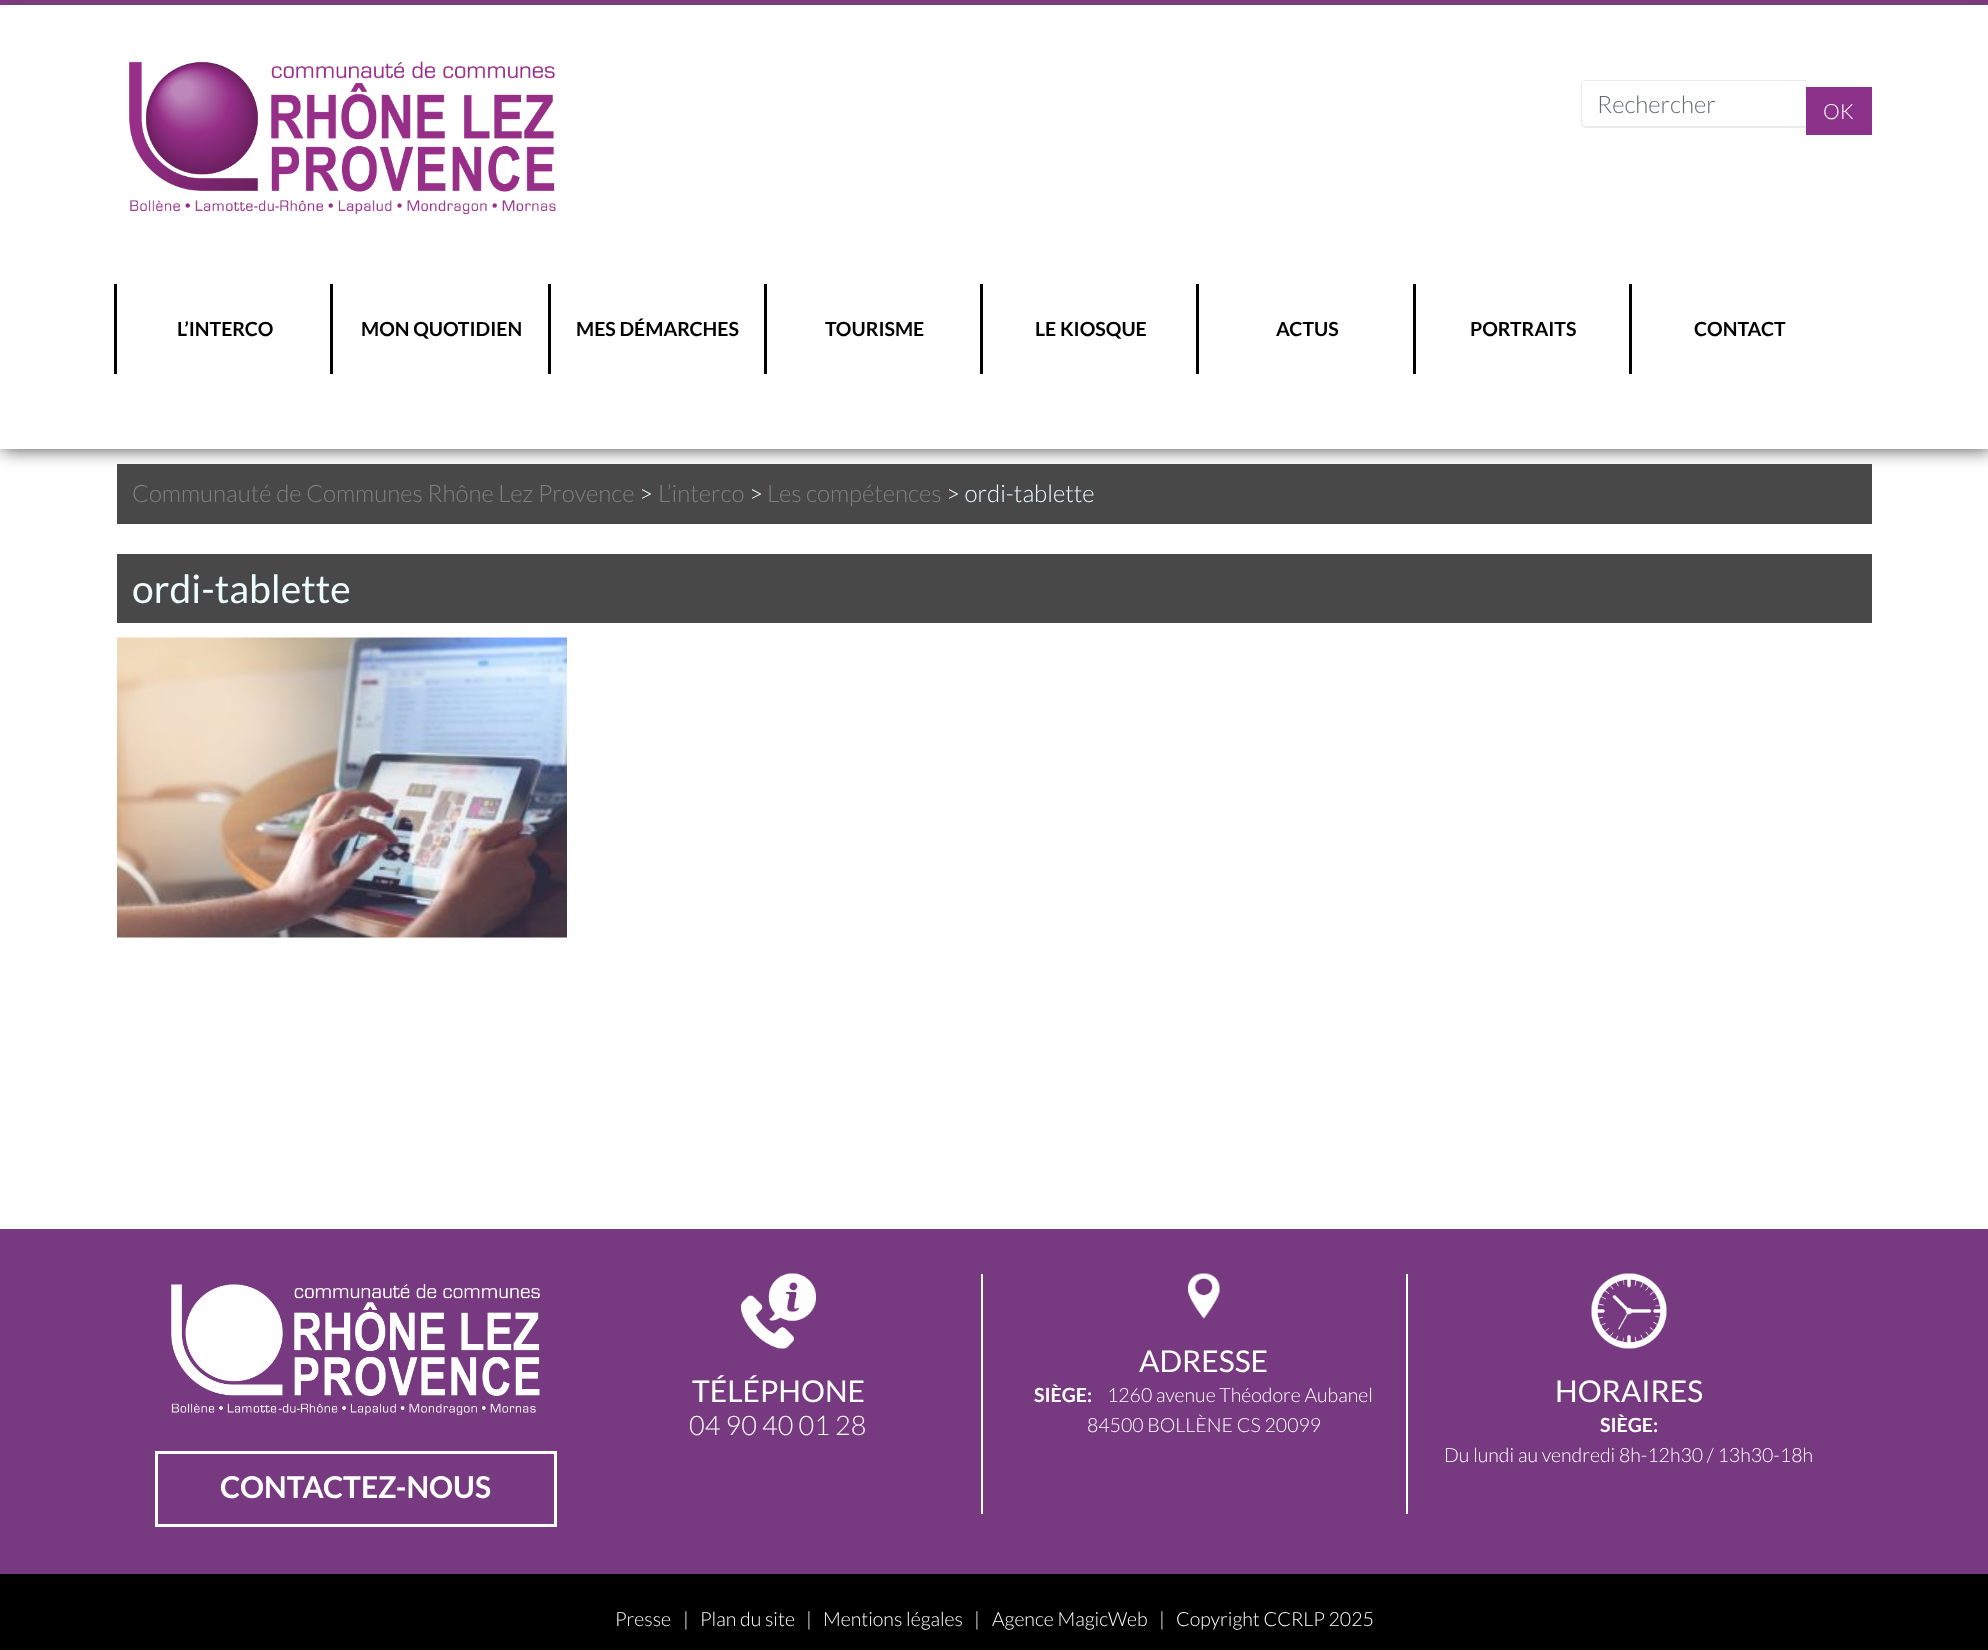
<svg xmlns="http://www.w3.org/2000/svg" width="1988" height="1650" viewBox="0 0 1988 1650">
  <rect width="100%" height="100%" fill="rgb(255,255,255)"/>
  <rect x="0" y="0" width="1988" height="5" fill="rgb(140,50,138)"/>
  <rect x="2" y="6" width="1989" height="444" fill="rgb(85,85,85)" filter="blur(9px)"/>
  <rect x="0" y="5" width="1988" height="444" fill="rgb(255,255,255)"/>
  <image x="129" y="61" width="427" height="154" href="pic1.png"/>
  <path d="M1586 80H1806V128H1586C1583 128 1581 125 1581 123V84C1581 82 1583 80 1586 80ZM1586 81H1806V126H1586C1584 126 1582 125 1582 123V84C1582 82 1584 81 1586 81Z" fill="rgb(234,234,234)" fill-rule="evenodd"/>
  <text x="1597" y="113" font-family="Lato" font-size="24" font-weight="300" fill="rgb(100,105,112)">Rechercher</text>
  <rect x="1806" y="87" width="66" height="48" fill="rgb(140,50,138)"/>
  <text x="1823" y="119" font-family="Lato" font-size="21" font-weight="300" fill="rgb(255,255,255)">OK</text>
  <rect x="114" y="284" width="3" height="90" fill="rgb(0,0,0)"/>
  <text x="177" y="336" font-family="Lato" font-size="19.5" font-weight="bold" fill="rgb(0,0,0)">L’INTERCO</text>
  <rect x="330" y="284" width="3" height="90" fill="rgb(0,0,0)"/>
  <text x="361" y="336" font-family="Lato" font-size="19.5" font-weight="bold" fill="rgb(0,0,0)">MON QUOTIDIEN</text>
  <rect x="548" y="284" width="3" height="90" fill="rgb(0,0,0)"/>
  <text x="576" y="336" font-family="Lato" font-size="19.5" font-weight="bold" fill="rgb(0,0,0)">MES DÉMARCHES</text>
  <rect x="764" y="284" width="3" height="90" fill="rgb(0,0,0)"/>
  <text x="825" y="336" font-family="Lato" font-size="19.5" font-weight="bold" fill="rgb(0,0,0)">TOURISME</text>
  <rect x="980" y="284" width="3" height="90" fill="rgb(0,0,0)"/>
  <text x="1035" y="336" font-family="Lato" font-size="19.5" font-weight="bold" fill="rgb(0,0,0)">LE KIOSQUE</text>
  <rect x="1196" y="284" width="3" height="90" fill="rgb(0,0,0)"/>
  <text x="1276" y="336" font-family="Lato" font-size="19.5" font-weight="bold" fill="rgb(0,0,0)">ACTUS</text>
  <rect x="1413" y="284" width="3" height="90" fill="rgb(0,0,0)"/>
  <text x="1470" y="336" font-family="Lato" font-size="19.5" font-weight="bold" fill="rgb(0,0,0)">PORTRAITS</text>
  <rect x="1629" y="284" width="3" height="90" fill="rgb(0,0,0)"/>
  <text x="1694" y="336" font-family="Lato" font-size="19.5" font-weight="bold" fill="rgb(0,0,0)">CONTACT</text>
  <rect x="117" y="464" width="1755" height="60" fill="rgb(72,72,72)"/>
  <text x="132" y="502" font-family="Lato" font-size="24" font-weight="300" fill="rgb(128,128,128)">Communauté de Communes Rhône Lez Provence</text>
  <text x="639" y="502" font-family="Lato" font-size="24" font-weight="300" fill="rgb(237,253,253)">&gt;</text>
  <text x="658" y="502" font-family="Lato" font-size="24" font-weight="300" fill="rgb(128,128,128)">L’interco</text>
  <text x="749" y="502" font-family="Lato" font-size="24" font-weight="300" fill="rgb(237,253,253)">&gt;</text>
  <text x="767" y="502" font-family="Lato" font-size="24" font-weight="300" fill="rgb(128,128,128)">Les compétences</text>
  <text x="946" y="502" font-family="Lato" font-size="24" font-weight="300" fill="rgb(237,253,253)">&gt; ordi-tablette</text>
  <rect x="117" y="554" width="1755" height="69" fill="rgb(72,72,72)"/>
  <text x="132" y="603" font-family="Lato" font-size="39" fill="rgb(237,253,253)">ordi-tablette</text>
  <image x="117" y="637" width="450" height="301" href="pic2.png"/>
  <rect x="0" y="1229" width="1988" height="345" fill="rgb(119,58,128)"/>
  <rect x="981" y="1274" width="2" height="240" fill="rgb(255,255,255)"/>
  <image x="741" y="1273" width="75" height="76" href="pic3.png"/>
  <text x="692" y="1402" font-family="Lato" font-size="30" fill="rgb(255,255,255)">TÉLÉPHONE</text>
  <text x="689" y="1435" font-family="Lato" font-size="27" font-weight="300" fill="rgb(255,255,255)">04 90 40 01 28</text>
  <rect x="1406" y="1274" width="2" height="240" fill="rgb(255,255,255)"/>
  <image x="1188" y="1273" width="32" height="46" href="pic4.png"/>
  <text x="1139" y="1372" font-family="Lato" font-size="30" fill="rgb(255,255,255)">ADRESSE</text>
  <text x="1034" y="1402" font-family="Lato" font-size="19.5" font-weight="bold" fill="rgb(255,255,255)">SIÈGE:</text>
  <g font-family="Lato" font-size="19.5" font-weight="300" fill="rgb(255,255,255)">
    <text x="1107" y="1402">1260 avenue Théodore Aubanel</text>
    <text x="1087" y="1432">84500 BOLLÈNE CS 20099</text>
  </g>
  <image x="1591" y="1273" width="76" height="76" href="pic5.png"/>
  <text x="1555" y="1402" font-family="Lato" font-size="30" fill="rgb(255,255,255)">HORAIRES</text>
  <text x="1600" y="1432" font-family="Lato" font-size="19.5" font-weight="bold" fill="rgb(255,255,255)">SIÈGE:</text>
  <text x="1444" y="1462" font-family="Lato" font-size="19.5" font-weight="300" fill="rgb(255,255,255)">Du lundi au vendredi 8h-12h30 / 13h30-18h</text>
  <image x="171" y="1283" width="369" height="133" href="pic6.png"/>
  <rect x="156.5" y="1452.5" width="399" height="73" fill="none" stroke="rgb(255,255,255)" stroke-width="3"/>
  <text x="220" y="1498" font-family="Lato" font-size="30" font-weight="bold" fill="rgb(255,255,255)">CONTACTEZ-NOUS</text>
  <rect x="0" y="1574" width="1988" height="76" fill="rgb(0,0,0)"/>
  <g font-family="Lato" font-size="19.5" font-weight="300" fill="rgb(255,255,255)">
    <text x="615" y="1626">Presse</text>
    <text x="683" y="1626">|</text>
    <text x="700" y="1626">Plan du site</text>
    <text x="806" y="1626">|</text>
    <text x="823" y="1626">Mentions légales</text>
    <text x="974" y="1626">|</text>
    <text x="992" y="1626">Agence MagicWeb</text>
    <text x="1159" y="1626">|</text>
    <text x="1176" y="1626">Copyright CCRLP 2025</text>
  </g>
</svg>
